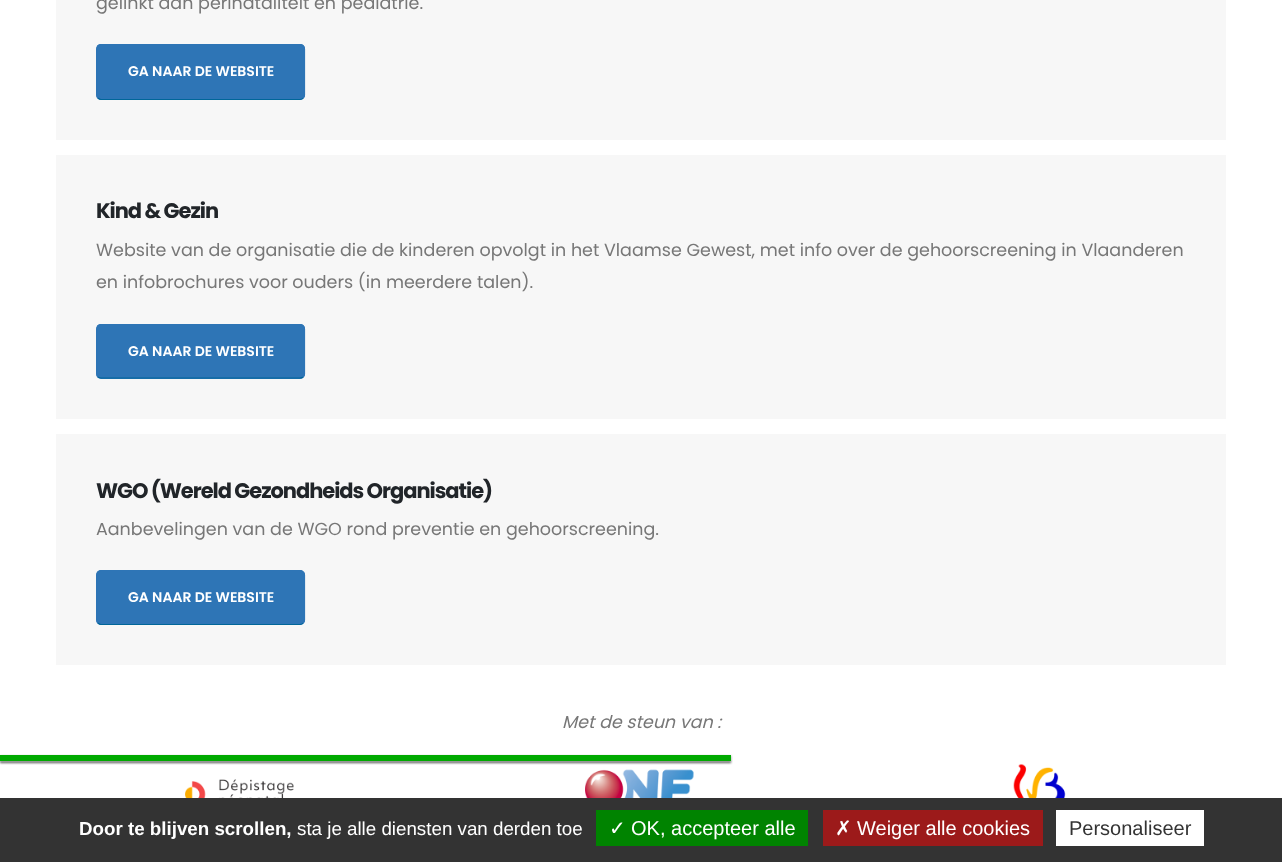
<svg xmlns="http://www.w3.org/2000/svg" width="1282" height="862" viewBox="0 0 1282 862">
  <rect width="100%" height="100%" fill="rgb(255,255,255)"/>
  <rect x="56" y="0" width="1170" height="140" fill="rgb(247,247,247)"/>
  <text x="96" y="9" font-family="Poppins" font-size="17.5" fill="rgb(119,119,119)">gelinkt aan perinataliteit en pediatrie.</text>
  <rect x="96" y="44" width="209" height="56" rx="5" fill="rgb(46,117,182)"/>
  <path d="M303 98C302.5 99 301 99.5 300 99.5H101C100 99.5 99 99 98 98" fill="none" stroke="rgb(0,102,153)" stroke-width="1.2"/>
  <path d="M98 98C97.5 97.5 97 96 97 95V49C97 47.5 97.5 46.5 98 45.5C99 45 100 44.5 101 44.5H300C301 44.5 302.5 45 303 45.5C304 46.5 304.5 47.5 304.5 49V95C304.5 96 304 97.5 303 98" fill="none" stroke="rgb(46,117,182)" stroke-width="1.2"/>
  <text x="128" y="76" font-family="Poppins" font-size="14" font-weight="600" fill="rgb(255,255,255)">GA NAAR DE WEBSITE</text>
  <rect x="56" y="155" width="1170" height="264" fill="rgb(247,247,247)"/>
  <text x="96" y="218" font-family="Poppins" font-size="21" font-weight="bold" letter-spacing="-1.05" fill="rgb(33,37,41)">Kind &amp; Gezin</text>
  <g font-family="Poppins" font-size="17.5" fill="rgb(119,119,119)">
    <text>
      <tspan x="96" y="256">Website van de organisatie die de kinderen opvolgt in het Vlaamse Gewest, met info over de gehoorscreening in Vlaanderen</tspan>
      <tspan x="96" y="288">en infobrochures voor ouders (in meerdere talen).</tspan>
    </text>
  </g>
  <rect x="96" y="324" width="209" height="55" rx="5" fill="rgb(46,117,182)"/>
  <path d="M303 377C302.5 377.5 301 378 300 378H101C100 378 99 377.5 98 377" fill="none" stroke="rgb(0,102,153)" stroke-width="1.2"/>
  <path d="M98 377C97.5 376 97 375 97 374V329C97 327.5 97.5 326.5 98 325.5C99 325 100 324.5 101 324.5H300C301 324.5 302.5 325 303 325.5C304 326.5 304.5 327.5 304.5 329V374C304.5 375 304 376 303 377" fill="none" stroke="rgb(46,117,182)" stroke-width="1.2"/>
  <text x="128" y="356" font-family="Poppins" font-size="14" font-weight="600" fill="rgb(255,255,255)">GA NAAR DE WEBSITE</text>
  <rect x="56" y="434" width="1170" height="231" fill="rgb(247,247,247)"/>
  <text x="96" y="498" font-family="Poppins" font-size="21" font-weight="bold" letter-spacing="-1.05" fill="rgb(33,37,41)">WGO (Wereld Gezondheids Organisatie)</text>
  <text x="96" y="535" font-family="Poppins" font-size="17.5" fill="rgb(119,119,119)">Aanbevelingen van de WGO rond preventie en gehoorscreening.</text>
  <rect x="96" y="570" width="209" height="55" rx="5" fill="rgb(46,117,182)"/>
  <path d="M303 623C302.5 624 301 624.5 300 624.5H101C100 624.5 99 624 98 623" fill="none" stroke="rgb(0,102,153)" stroke-width="1.2"/>
  <path d="M98 623C97.5 622.5 97 621 97 620V575C97 574 97.5 572.5 98 572C99 571 100 570.5 101 570.5H300C301 570.5 302.5 571 303 572C304 572.5 304.5 574 304.5 575V620C304.5 621 304 622.5 303 623" fill="none" stroke="rgb(46,117,182)" stroke-width="1.2"/>
  <text x="128" y="602" font-family="Poppins" font-size="14" font-weight="600" fill="rgb(255,255,255)">GA NAAR DE WEBSITE</text>
  <text x="562" y="728" font-family="Poppins" font-size="17.5" font-style="italic" fill="rgb(119,119,119)">Met de steun van :</text>
  <image x="185" y="779" width="109" height="19" href="pic1.png"/>
  <image x="585" y="769" width="109" height="29" href="pic2.png"/>
  <image x="1013" y="764" width="53" height="34" href="pic3.png"/>
  <rect x="0" y="756" width="731" height="7" fill="rgb(85,85,85)" filter="blur(1px)"/>
  <rect x="0" y="755" width="731" height="6" fill="rgb(255,255,255)" filter="blur(1px)"/>
  <rect x="0" y="755" width="731" height="6" fill="rgb(0,170,0)"/>
  <rect x="0" y="798" width="1282" height="64" fill="rgb(51,51,51)"/>
  <text x="79" y="835" font-family="Liberation Sans" font-size="18.75" font-weight="bold" fill="rgb(255,255,255)">Door te blijven scrollen,</text>
  <text x="297" y="835" font-family="Liberation Sans" font-size="18.75" fill="rgb(255,255,255)">sta je alle diensten van derden toe</text>
  <rect x="596" y="810" width="212" height="36" fill="rgb(0,131,0)"/>
  <text x="609" y="835" font-family="DejaVu Sans" font-size="20" fill="rgb(255,255,255)">✓</text>
  <text x="631" y="835" font-family="Liberation Sans" font-size="20" fill="rgb(255,255,255)">OK, accepteer alle</text>
  <rect x="823" y="810" width="220" height="36" fill="rgb(156,26,26)"/>
  <text x="835" y="835" font-family="DejaVu Sans" font-size="20" fill="rgb(255,255,255)">✗</text>
  <text x="857" y="835" font-family="Liberation Sans" font-size="20" fill="rgb(255,255,255)">Weiger alle cookies</text>
  <rect x="1056" y="810" width="148" height="36" fill="rgb(255,255,255)"/>
  <text x="1069" y="835" font-family="Liberation Sans" font-size="20" fill="rgb(51,51,51)">Personaliseer</text>
</svg>
